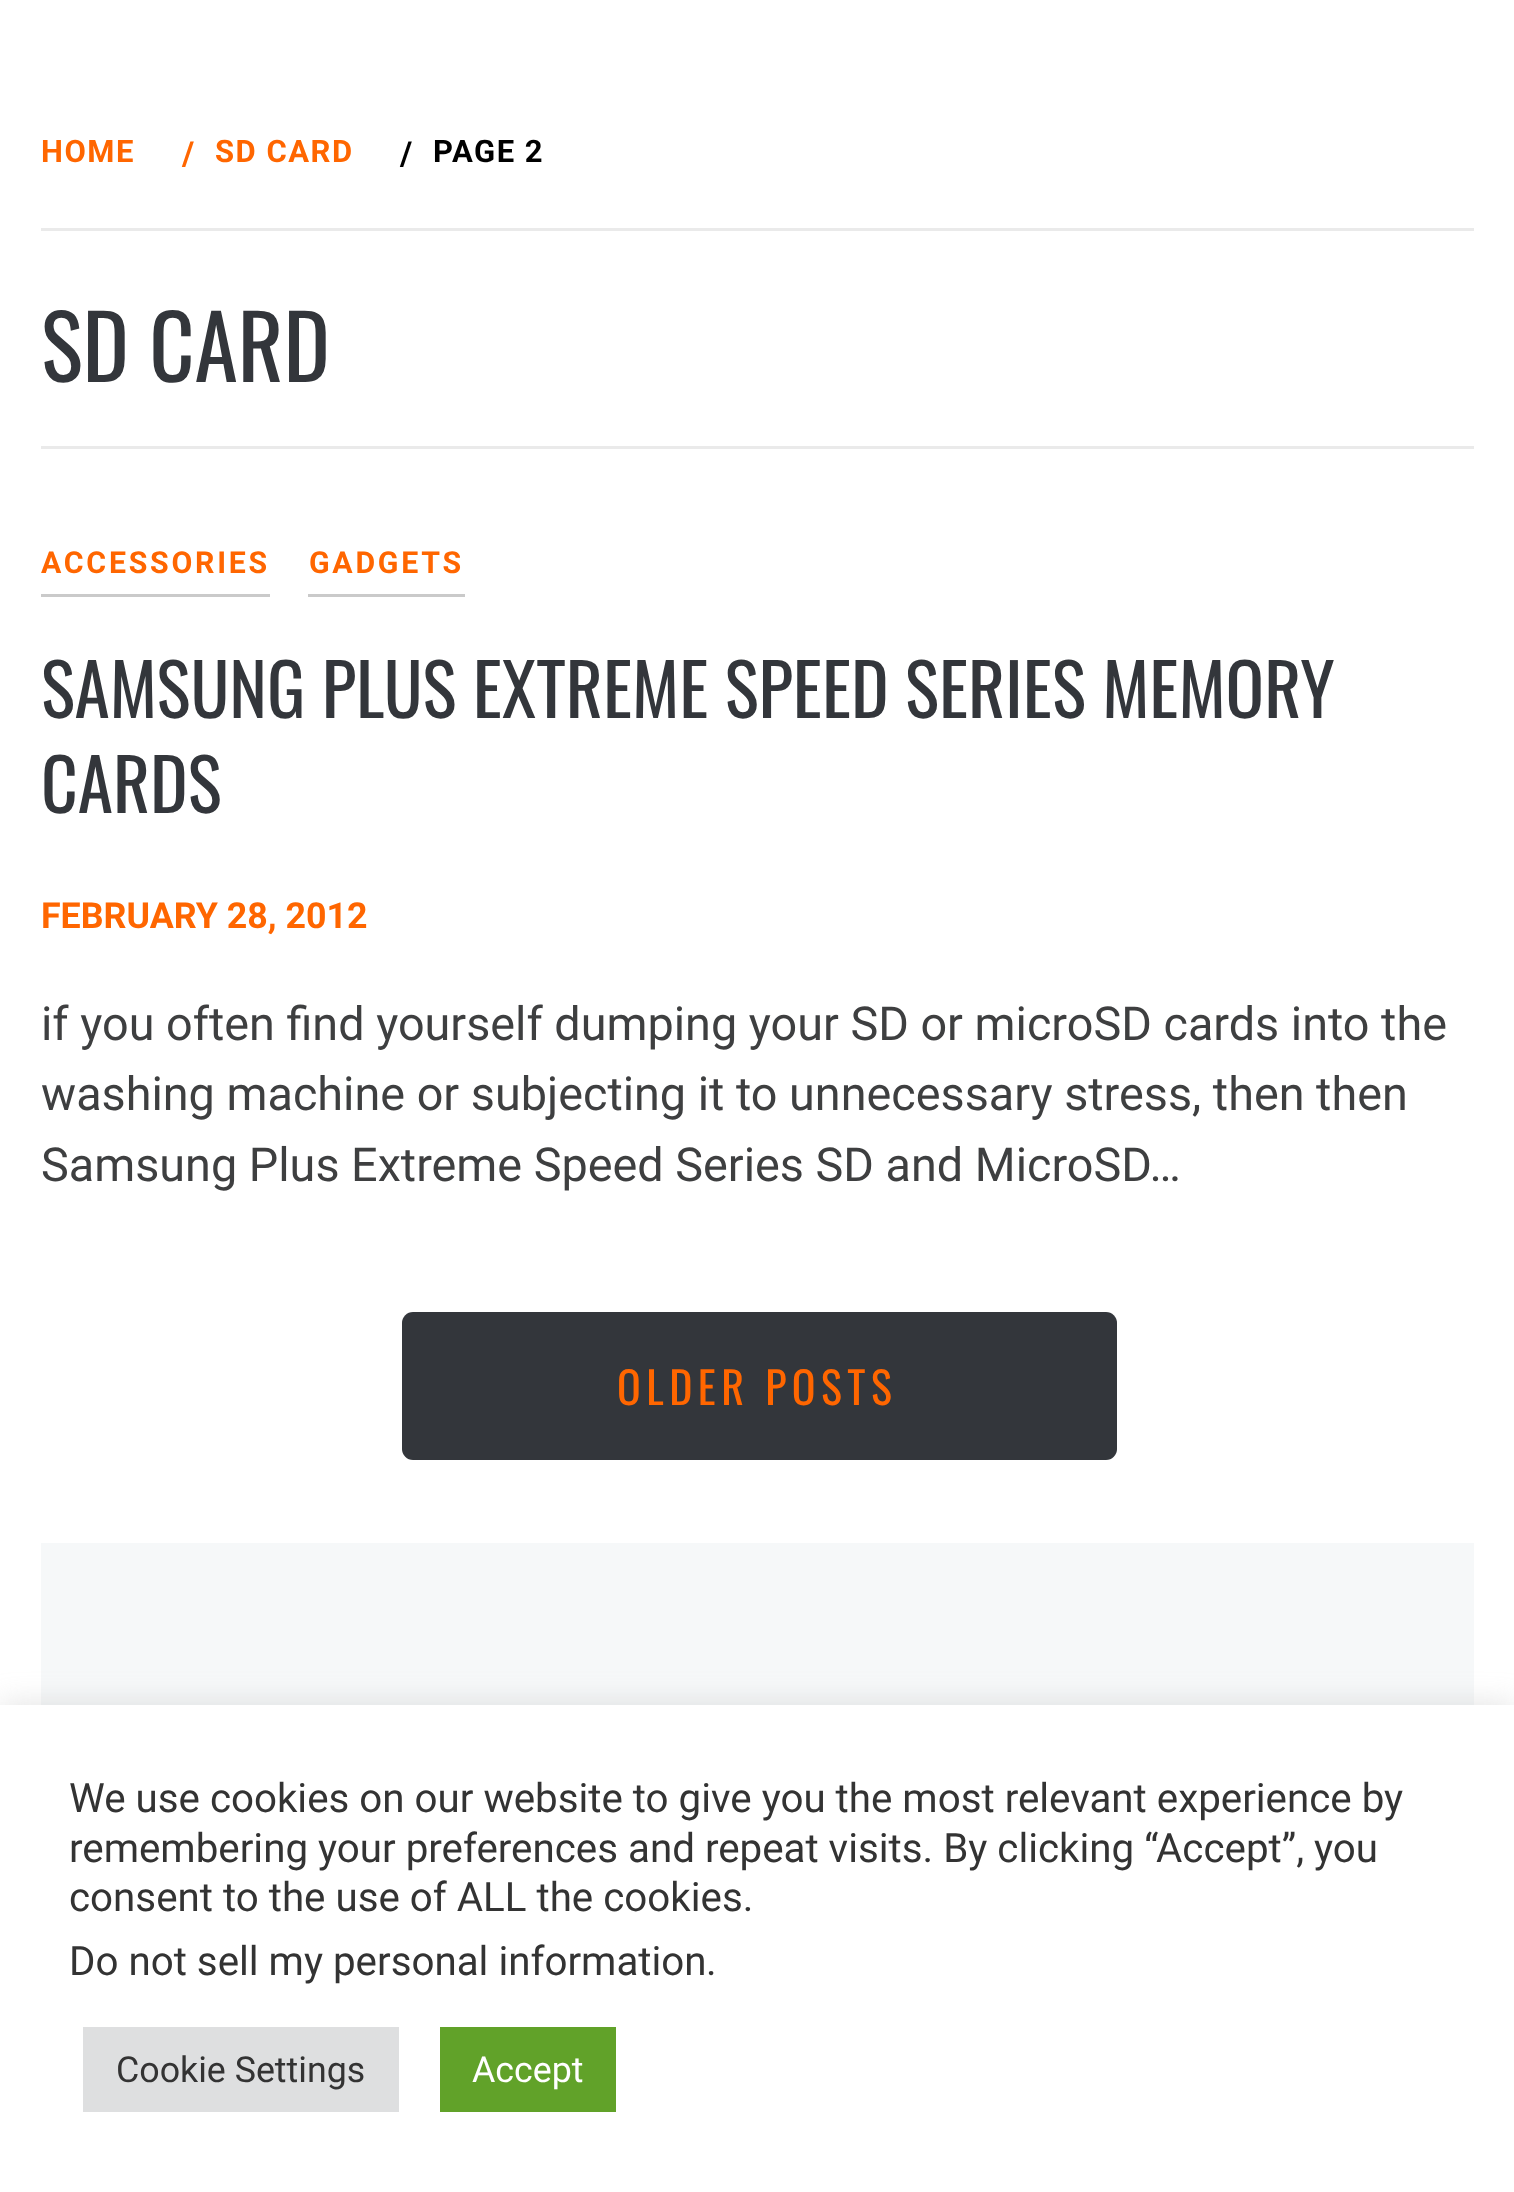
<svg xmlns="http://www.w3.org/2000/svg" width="1514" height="2192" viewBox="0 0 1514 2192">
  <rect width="100%" height="100%" fill="rgb(255,255,255)"/>
  <rect x="41" y="446" width="1433" height="3" fill="rgb(234,234,234)"/>
  <rect x="41" y="228" width="1433" height="3" fill="rgb(234,234,234)"/>
  <text x="41" y="162" font-family="Roboto" font-size="31" font-weight="bold" letter-spacing="1.5" fill="rgb(255,102,0)">HOME</text>
  <text x="182" y="165" font-family="Roboto" font-size="33" font-weight="bold" letter-spacing="1.5" fill="rgb(255,102,0)">/</text>
  <text x="215" y="162" font-family="Roboto" font-size="31" font-weight="bold" letter-spacing="1.5" fill="rgb(255,102,0)">SD CARD</text>
  <text x="400" y="165" font-family="Roboto" font-size="33" font-weight="bold" letter-spacing="1.5" fill="rgb(0,0,0)">/</text>
  <text x="433" y="162" font-family="Roboto" font-size="31" font-weight="bold" letter-spacing="1.5" fill="rgb(0,0,0)">PAGE 2</text>
  <text x="41" y="382" font-family="Oswald" font-size="88" fill="rgb(51,54,59)">SD CARD</text>
  <rect x="41" y="594" width="229" height="3" fill="rgb(202,202,202)"/>
  <text x="41" y="573" font-family="Roboto" font-size="30.25" font-weight="bold" letter-spacing="2.75" fill="rgb(255,102,0)">ACCESSORIES</text>
  <rect x="308" y="594" width="157" height="3" fill="rgb(202,202,202)"/>
  <text x="309" y="573" font-family="Roboto" font-size="30.25" font-weight="bold" letter-spacing="2.75" fill="rgb(255,102,0)">GADGETS</text>
  <g font-family="Oswald" font-size="71.5" fill="rgb(51,54,59)">
    <text>
      <tspan x="41" y="718">SAMSUNG PLUS EXTREME SPEED SERIES MEMORY</tspan>
      <tspan x="41" y="813">CARDS</tspan>
    </text>
  </g>
  <text x="41" y="928" font-family="Roboto" font-size="35.75" font-weight="bold" fill="rgb(255,102,0)">FEBRUARY 28, 2012</text>
  <g font-family="Roboto" font-size="46.75" fill="rgb(62,63,64)">
    <text>
      <tspan x="41" y="1040">if you often find yourself dumping your SD or microSD cards into the</tspan>
      <tspan x="41" y="1110">washing machine or subjecting it to unnecessary stress, then then</tspan>
      <tspan x="41" y="1181">Samsung Plus Extreme Speed Series SD and MicroSD…</tspan>
    </text>
  </g>
  <rect x="402" y="1312" width="715" height="148" rx="11" fill="rgb(51,54,59)"/>
  <text x="617" y="1405" font-family="Oswald" font-size="44" letter-spacing="5.5" fill="rgb(255,102,0)">OLDER POSTS</text>
  <rect x="41" y="1543" width="1433" height="162" fill="rgb(246,248,249)"/>
  <rect x="0" y="1702" width="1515" height="490" fill="rgba(172,171,171,0.3)" filter="blur(14px)"/>
  <rect x="0" y="1705" width="1514" height="487" fill="rgb(255,255,255)"/>
  <g font-family="Roboto" font-size="40.3" fill="rgb(51,51,51)">
    <text>
      <tspan x="69" y="1812">We use cookies on our website to give you the most relevant experience by</tspan>
      <tspan x="69" y="1862">remembering your preferences and repeat visits. By clicking “Accept”, you</tspan>
      <tspan x="69" y="1911">consent to the use of ALL the cookies.</tspan>
      <tspan x="69" y="1975">Do not sell my personal information</tspan>
    </text>
    <text x="706" y="1975">.</text>
  </g>
  <rect x="83" y="2027" width="316" height="85" fill="rgb(222,223,224)"/>
  <text x="116" y="2082" font-family="Roboto" font-size="35.75" fill="rgb(51,51,51)">Cookie Settings</text>
  <rect x="440" y="2027" width="176" height="85" fill="rgb(97,162,41)"/>
  <text x="472" y="2082" font-family="Roboto" font-size="35.75" fill="rgb(255,255,255)">Accept</text>
</svg>
